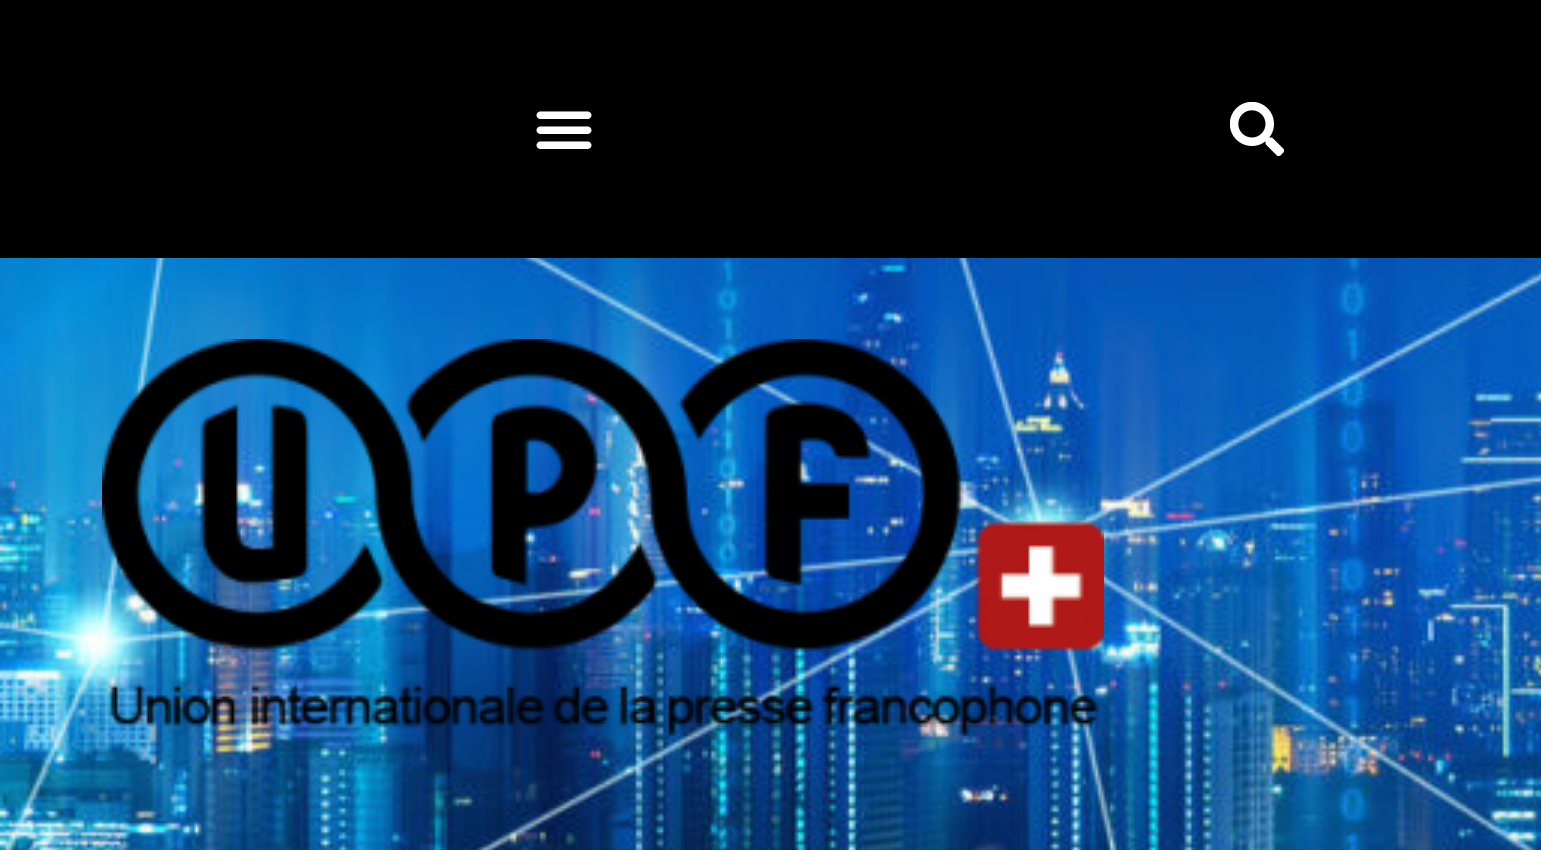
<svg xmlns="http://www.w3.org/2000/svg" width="1541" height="850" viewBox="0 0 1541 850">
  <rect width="100%" height="100%" fill="rgb(255,255,255)"/>
  <rect x="0" y="0" width="1541" height="258" fill="rgb(0,0,0)"/>
  <image x="536" y="111" width="56" height="38" href="pic1.png"/>
  <image x="1230" y="102" width="54" height="54" href="pic2.png"/>
  <image x="0" y="258" width="1541" height="592" href="pic3.png"/>
  <image x="102" y="339" width="1002" height="397" href="pic4.png"/>
</svg>
